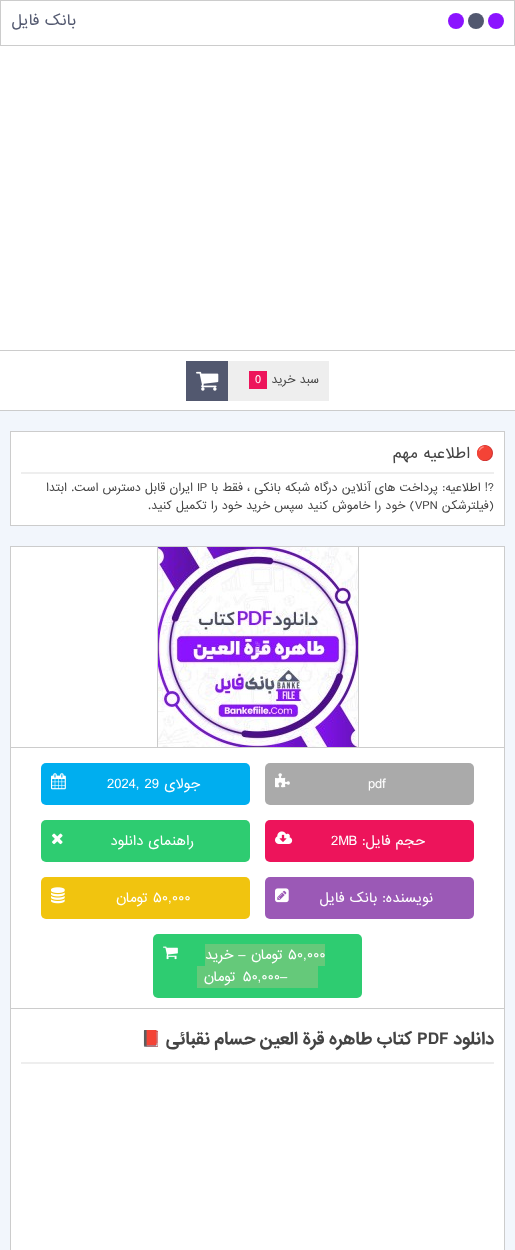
<svg xmlns="http://www.w3.org/2000/svg" width="515" height="1250" viewBox="0 0 515 1250">
  <rect width="100%" height="100%" fill="rgb(242,246,252)"/>
  <rect x="0" y="46" width="515" height="364" fill="rgb(255,255,255)"/>
  <rect x="0.5" y="0.5" width="514" height="45" fill="rgb(255,255,255)" stroke="rgb(204,204,204)"/>
  <circle cx="496" cy="21" r="8" fill="rgb(139,19,255)"/>
  <circle cx="476" cy="21" r="8" fill="rgb(82,88,111)"/>
  <circle cx="456" cy="21" r="8" fill="rgb(139,19,255)"/>
  <text x="76" y="25" font-family="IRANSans" font-size="14.5" direction="rtl" fill="rgb(82,88,111)">بانک فایل</text>
  <rect x="0" y="350" width="515" height="1" fill="rgb(204,204,204)"/>
  <rect x="0" y="410" width="515" height="1" fill="rgb(204,204,204)"/>
  <rect x="228" y="361" width="101" height="40" fill="rgb(238,238,238)"/>
  <text x="319" y="383" font-family="IRANSans" font-size="11" direction="rtl" fill="rgb(68,68,68)">سبد خرید</text>
  <rect x="249" y="371" width="18" height="18" fill="rgb(237,20,91)"/>
  <text x="255" y="383" font-family="IRANSans" font-size="11" fill="rgb(255,255,255)">0</text>
  <rect x="186" y="361" width="42" height="40" fill="rgb(82,88,111)"/>
  <image x="196" y="371" width="23" height="20" href="pic1.png"/>
  <rect x="10.5" y="431.5" width="494" height="94" fill="rgb(255,255,255)" stroke="rgb(204,204,204)"/>
  <text x="494" y="458" font-family="Noto Color Emoji" font-size="14.5" direction="rtl" fill="rgb(68,68,68)">🔴</text>
  <text x="470" y="458" font-family="IRANSans" font-size="14.5" direction="rtl" fill="rgb(68,68,68)">اطلاعیه مهم</text>
  <rect x="21" y="472" width="473" height="2" fill="rgb(238,238,238)"/>
  <text x="494" y="491" font-family="IRANSans" font-size="11" direction="rtl" fill="rgb(68,68,68)">?! اطلاعیه: پرداخت‌ های آنلاین درگاه شبکه بانکی ، فقط با</text>
  <text x="197" y="491" font-family="IRANSans" font-size="11" fill="rgb(68,68,68)">IP</text>
  <g font-family="IRANSans" font-size="11" direction="rtl" fill="rgb(68,68,68)">
    <text x="193" y="491">ایران قابل دسترس است.</text>
    <text x="67" y="491">ابتدا</text>
    <text x="494" y="509">(فیلترشکن</text>
  </g>
  <text x="415" y="509" font-family="IRANSans" font-size="11" fill="rgb(68,68,68)">VPN</text>
  <text x="415" y="509" font-family="IRANSans" font-size="11" direction="rtl" fill="rgb(68,68,68)">) خود را خاموش کنید سپس خرید خود را تکمیل کنید.</text>
  <rect x="10.5" y="546.5" width="494" height="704" fill="rgb(255,255,255)" stroke="rgb(204,204,204)"/>
  <rect x="11" y="1008" width="493" height="1" fill="rgb(204,204,204)"/>
  <rect x="358" y="547" width="1" height="200" fill="rgb(204,204,204)"/>
  <rect x="157" y="547" width="1" height="200" fill="rgb(204,204,204)"/>
  <image x="158" y="547" width="200" height="200" href="pic2.png"/>
  <text x="260" y="653" transform="rotate(-90 260 653)" font-family="IRANSans" font-size="6" fill="rgb(186,110,251)">PDF</text>
  <rect x="11" y="747" width="493" height="1" fill="rgb(204,204,204)"/>
  <rect x="265" y="763" width="209" height="42" rx="5" fill="rgb(170,170,170)"/>
  <text x="368" y="788" font-family="IRANSans" font-size="13" fill="rgb(255,255,255)">pdf</text>
  <image x="275" y="773" width="15" height="15" href="pic3.png"/>
  <rect x="41" y="763" width="209" height="42" rx="5" fill="rgb(0,174,239)"/>
  <text x="200" y="788" font-family="IRANSans" font-size="13" direction="rtl" fill="rgb(255,255,255)">جولای</text>
  <text x="107" y="788" font-family="IRANSans" font-size="13" fill="rgb(255,255,255)">2024, 29</text>
  <image x="51" y="773" width="15" height="17" href="pic4.png"/>
  <rect x="265" y="820" width="209" height="42" rx="5" fill="rgb(237,20,91)"/>
  <text x="425" y="845" font-family="IRANSans" font-size="13" direction="rtl" fill="rgb(255,255,255)">حجم فایل:</text>
  <text x="331" y="845" font-family="IRANSans" font-size="13" fill="rgb(255,255,255)">2MB</text>
  <image x="275" y="831" width="18" height="13" href="pic5.png"/>
  <rect x="41" y="820" width="209" height="42" rx="5" fill="rgb(46,204,113)"/>
  <text x="194" y="845" font-family="IRANSans" font-size="13" direction="rtl" fill="rgb(255,255,255)">راهنمای دانلود</text>
  <image x="52" y="833" width="11" height="12" href="pic6.png"/>
  <rect x="265" y="877" width="209" height="42" rx="5" fill="rgb(155,89,182)"/>
  <text x="433" y="902" font-family="IRANSans" font-size="13" direction="rtl" fill="rgb(255,255,255)">نویسنده: بانک فایل</text>
  <image x="275" y="888" width="14" height="15" href="pic7.png"/>
  <rect x="41" y="877" width="209" height="42" rx="5" fill="rgb(241,196,15)"/>
  <text x="153" y="902" font-family="IRANSans" font-size="13" fill="rgb(255,255,255)">۵۰,۰۰۰</text>
  <text x="148" y="902" font-family="IRANSans" font-size="13" direction="rtl" fill="rgb(255,255,255)">تومان</text>
  <image x="51" y="887" width="14" height="17" href="pic8.png"/>
  <rect x="153" y="934" width="209" height="64" rx="5" fill="rgb(46,204,113)"/>
  <rect x="205" y="944" width="120" height="22" fill="rgb(101,201,122)"/>
  <text x="288" y="959" font-family="IRANSans" font-size="13" fill="rgb(255,255,255)">۵۰,۰۰۰</text>
  <text x="283" y="959" font-family="IRANSans" font-size="13" direction="rtl" fill="rgb(255,255,255)">تومان – خرید</text>
  <rect x="197" y="966" width="121" height="22" fill="rgb(101,201,122)"/>
  <text x="280" y="981" font-family="IRANSans" font-size="13" fill="rgb(255,255,255)">–</text>
  <text x="280" y="981" word-spacing="2" font-family="IRANSans" font-size="13" direction="rtl" fill="rgb(255,255,255)">۵۰,۰۰۰ تومان</text>
  <image x="163" y="946" width="15" height="14" href="pic9.png"/>
  <text x="494" y="1044" font-family="IRANSans" font-size="16" font-weight="bold" direction="rtl" fill="rgb(68,68,68)">دانلود</text>
  <text x="417" y="1044" font-family="IRANSans" font-size="16" font-weight="bold" fill="rgb(68,68,68)">PDF</text>
  <text x="412" y="1044" font-family="IRANSans" font-size="16" font-weight="bold" direction="rtl" fill="rgb(68,68,68)">کتاب طاهره قرة العین حسام نقبائی</text>
  <text x="161" y="1044" font-family="Noto Color Emoji" font-size="16" font-weight="bold" direction="rtl" fill="rgb(68,68,68)">📕</text>
  <rect x="21" y="1062" width="473" height="2" fill="rgb(238,238,238)"/>
</svg>
